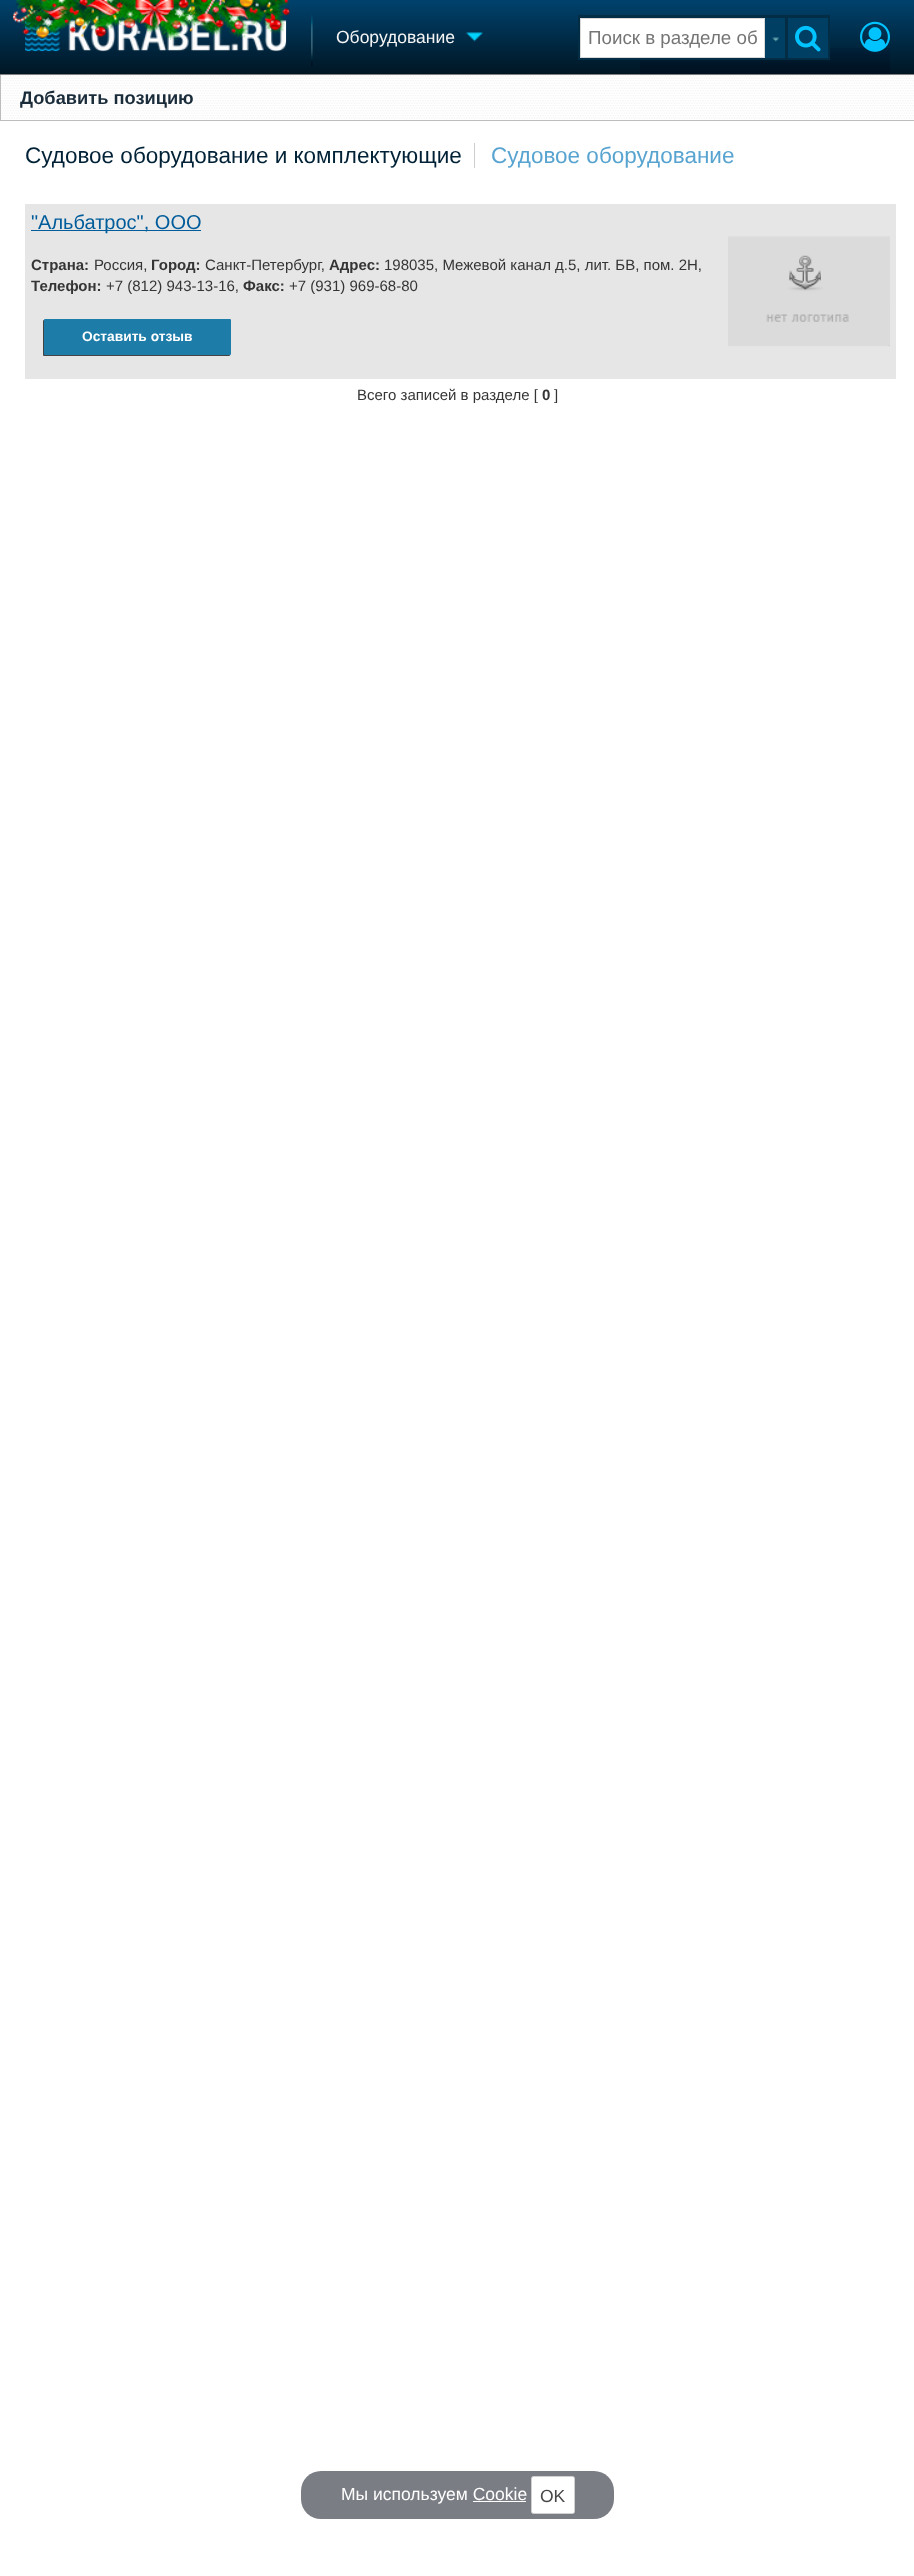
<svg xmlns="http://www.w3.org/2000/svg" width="914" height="2576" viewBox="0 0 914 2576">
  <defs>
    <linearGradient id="g1" gradientUnits="userSpaceOnUse" x1="458" y1="0" x2="458" y2="74"><stop offset="0" stop-color="rgb(0,66,109)"/><stop offset="1" stop-color="rgb(0,22,36)"/></linearGradient>
  </defs>
  <rect width="100%" height="100%" fill="rgb(255,255,255)"/>
  <rect x="0" y="74" width="914" height="1" fill="rgb(128,128,128)"/>
  <rect x="0" y="0" width="914" height="74" fill="url(#g1)"/>
  <image x="25" y="20" width="262" height="32" href="pic3.png"/>
  <image x="13" y="0" width="277" height="40" href="pic1.png"/>
  <image x="311" y="14" width="2" height="52" href="pic2.png"/>
  <text x="336" y="43" font-family="Liberation Sans" font-size="17.5" fill="rgb(245,245,245)">Оборудование</text>
  <image x="466" y="32" width="17" height="10" href="pic4.png"/>
  <image x="640" y="48" width="250" height="27" href="pic5.png"/>
  <image x="860" y="21" width="30" height="31" href="pic6.png"/>
  <rect x="578" y="15" width="252" height="45" fill="rgb(2,45,69)"/>
  <rect x="580.5" y="18.5" width="184" height="39" fill="rgb(255,255,255)" stroke="rgb(217,217,217)"/>
  <text x="588" y="44" font-family="Liberation Sans" font-size="18.75" fill="rgb(117,117,117)">Поиск в разделе об</text>
  <rect x="765" y="18" width="20" height="40" fill="rgb(0,63,100)"/>
  <image x="772" y="37" width="7" height="5" href="pic7.png"/>
  <rect x="788" y="18" width="40" height="40" fill="rgb(0,63,100)"/>
  <image x="795" y="25" width="26" height="27" href="pic8.png"/>
  <image x="1" y="75" width="913" height="45" href="pic9.png"/>
  <rect x="1" y="120" width="913" height="1" fill="rgb(188,188,188)"/>
  <rect x="0" y="75" width="1" height="46" fill="rgb(188,188,188)"/>
  <text x="20" y="104" font-family="Liberation Sans" font-size="18.25" font-weight="bold" fill="rgb(26,44,58)">Добавить позицию</text>
  <text x="25" y="163" font-family="Liberation Sans" font-size="22.5" fill="rgb(0,33,54)">Судовое оборудование и комплектующие</text>
  <text x="491" y="163" font-family="Liberation Sans" font-size="22.5" fill="rgb(88,164,208)">Судовое оборудование</text>
  <rect x="474" y="143" width="1" height="25" fill="rgb(206,206,206)"/>
  <rect x="25" y="204" width="871" height="175" fill="rgb(230,230,230)"/>
  <rect x="31" y="230" width="170" height="1" fill="rgb(0,92,154)"/>
  <text x="31" y="229" font-family="Liberation Sans" font-size="20" fill="rgb(0,92,154)">"Альбатрос", ООО</text>
  <image x="728" y="236" width="162" height="111" href="pic10.png"/>
  <text x="31" y="270" font-family="Liberation Sans" font-size="15" font-weight="bold" fill="rgb(53,53,53)">Страна:</text>
  <text x="94" y="270" font-family="Liberation Sans" font-size="15" fill="rgb(53,53,53)">Россия,</text>
  <text x="151" y="270" font-family="Liberation Sans" font-size="15" font-weight="bold" fill="rgb(53,53,53)">Город:</text>
  <text x="205" y="270" font-family="Liberation Sans" font-size="15" fill="rgb(53,53,53)">Санкт-Петербург,</text>
  <text x="329" y="270" font-family="Liberation Sans" font-size="15" font-weight="bold" fill="rgb(53,53,53)">Адрес:</text>
  <text x="384" y="270" font-family="Liberation Sans" font-size="15" fill="rgb(53,53,53)">198035, Межевой канал д.5, лит. БВ, пом. 2Н,</text>
  <text x="31" y="291" font-family="Liberation Sans" font-size="15" font-weight="bold" fill="rgb(53,53,53)">Телефон:</text>
  <text x="106" y="291" font-family="Liberation Sans" font-size="15" fill="rgb(53,53,53)">+7 (812) 943-13-16,</text>
  <text x="243" y="291" font-family="Liberation Sans" font-size="15" font-weight="bold" fill="rgb(53,53,53)">Факс:</text>
  <text x="289" y="291" font-family="Liberation Sans" font-size="15" fill="rgb(53,53,53)">+7 (931) 969-68-80</text>
  <rect x="43" y="320" width="187" height="36" rx="1" fill="rgb(68,68,68)" filter="blur(0.5px)"/>
  <rect x="44" y="319" width="187" height="36" rx="1" fill="rgb(30,124,169)"/>
  <text x="82" y="341" font-family="Liberation Sans" font-size="13.75" font-weight="bold" fill="rgb(255,255,255)">Оставить отзыв</text>
  <text x="357" y="400" font-family="Liberation Sans" font-size="15" fill="rgb(53,53,53)">Всего записей в разделе [</text>
  <text x="542" y="400" font-family="Liberation Sans" font-size="15" font-weight="bold" fill="rgb(53,53,53)">0</text>
  <text x="554" y="400" font-family="Liberation Sans" font-size="15" fill="rgb(53,53,53)">]</text>
  <rect x="301" y="2471" width="313" height="48" rx="20" fill="rgb(123,125,132)"/>
  <text x="341" y="2500" font-family="Liberation Sans" font-size="17.5" fill="rgb(255,255,255)">Мы используем Cookie</text>
  <rect x="531.5" y="2476.5" width="43" height="37" rx="2" fill="rgb(255,255,255)" stroke="rgb(209,209,209)"/>
  <text x="540" y="2502" font-family="Liberation Sans" font-size="17.5" fill="rgb(71,71,71)">OK</text>
  <rect x="473" y="2501" width="53" height="1" fill="rgb(255,255,255)"/>
</svg>
